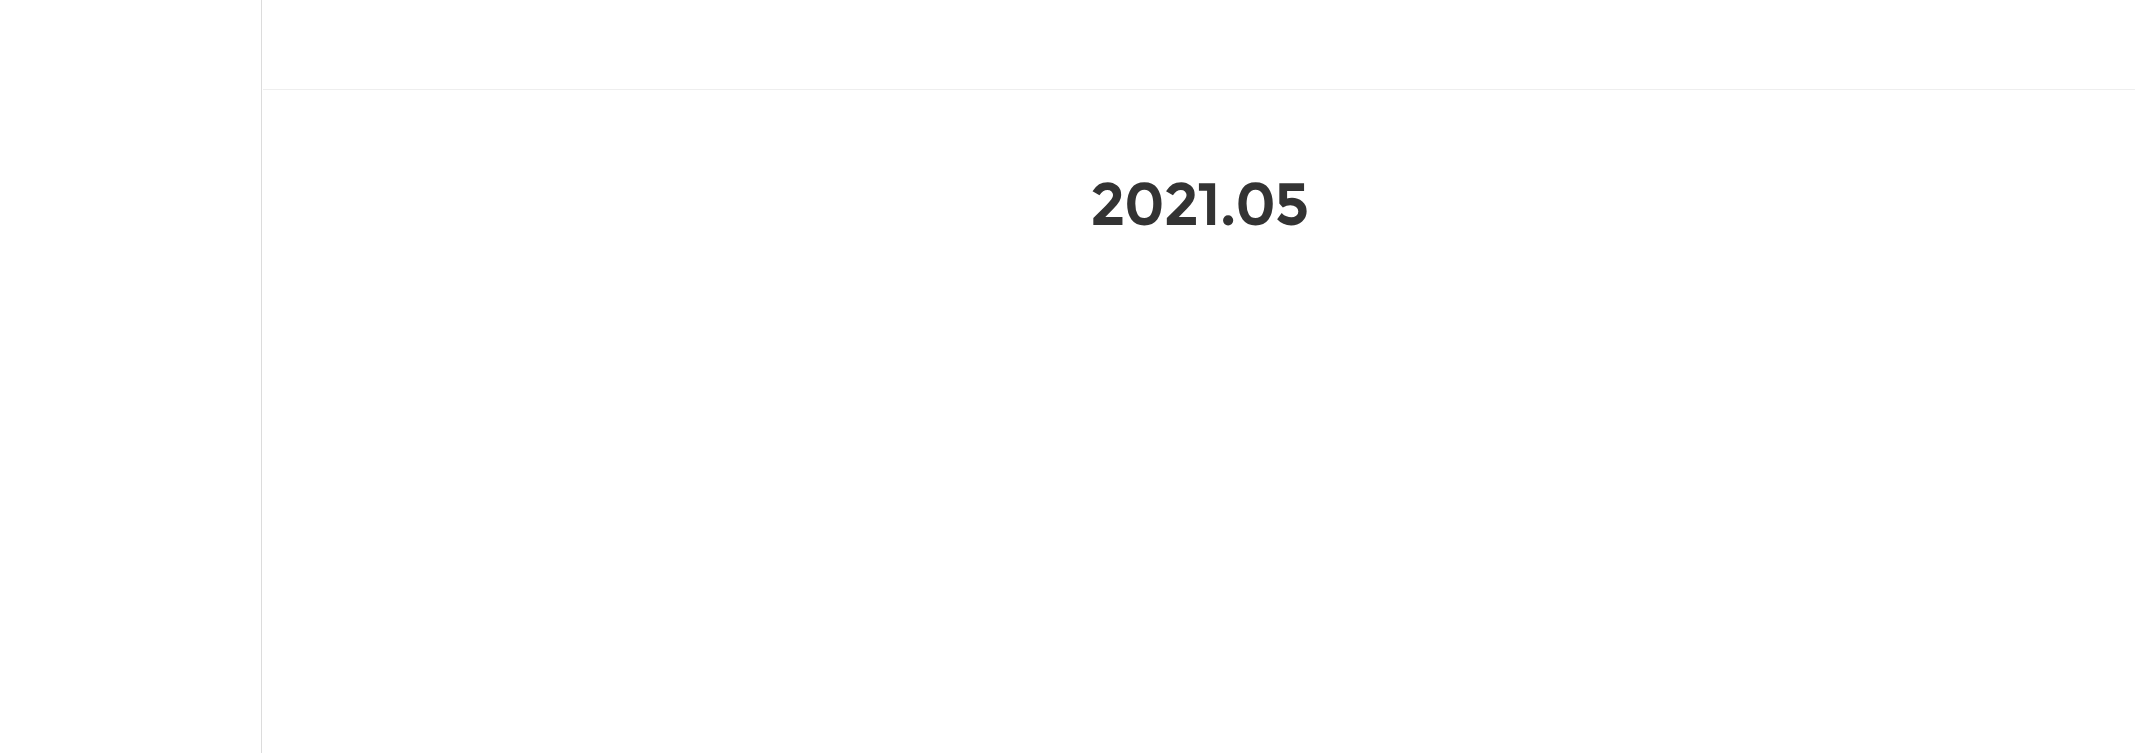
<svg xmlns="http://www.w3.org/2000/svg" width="2135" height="753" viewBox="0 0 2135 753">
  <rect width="100%" height="100%" fill="rgb(255,255,255)"/>
  <rect x="261" y="0" width="1" height="753" fill="rgb(220,220,220)"/>
  <rect x="263" y="89" width="1872" height="1" fill="rgb(238,238,238)"/>
  <g font-family="Montserrat" font-size="57.5" font-weight="bold" fill="rgb(51,51,51)">
    <text x="1090" y="225">2021.</text>
    <text x="1235" y="225">05</text>
  </g>
</svg>
